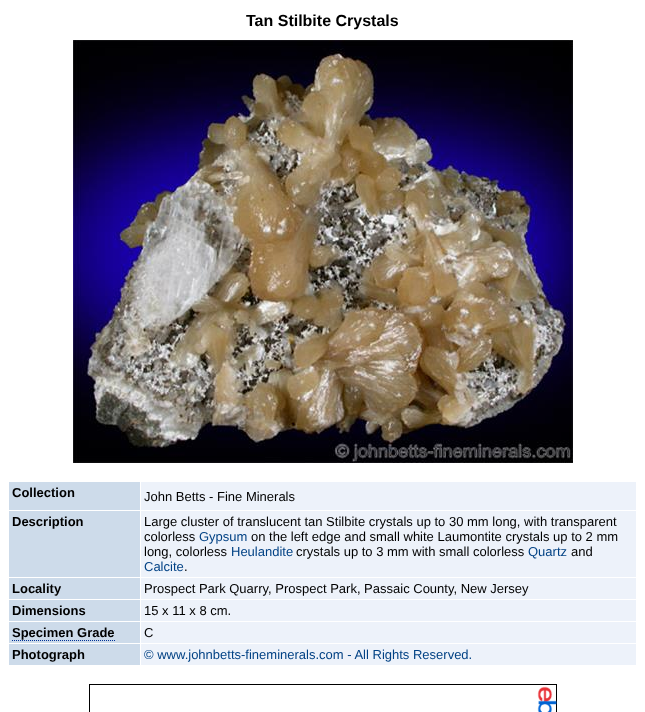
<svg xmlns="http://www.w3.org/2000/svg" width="645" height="712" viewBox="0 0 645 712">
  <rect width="100%" height="100%" fill="rgb(255,255,255)"/>
  <text x="246" y="26" font-family="Liberation Sans" font-size="16" font-weight="bold" fill="rgb(0,0,0)">Tan Stilbite Crystals</text>
  <image x="73" y="40" width="500" height="423" href="pic1.png"/>
  <rect x="9" y="482" width="131" height="28" fill="rgb(205,219,234)"/>
  <text x="12" y="497" font-family="Liberation Sans" font-size="13" font-weight="bold" fill="rgb(0,0,0)">Collection</text>
  <rect x="141" y="482" width="495" height="28" fill="rgb(237,242,250)"/>
  <text x="144" y="501" font-family="Liberation Sans" font-size="13" fill="rgb(0,0,0)">John Betts - Fine Minerals</text>
  <rect x="9" y="511" width="131" height="66" fill="rgb(205,219,234)"/>
  <text x="12" y="526" font-family="Liberation Sans" font-size="13" font-weight="bold" fill="rgb(0,0,0)">Description</text>
  <rect x="141" y="511" width="495" height="66" fill="rgb(237,242,250)"/>
  <g font-family="Liberation Sans" font-size="13" fill="rgb(0,0,0)">
    <text>
      <tspan x="144" y="526">Large cluster of translucent tan Stilbite crystals up to 30 mm long, with transparent</tspan>
      <tspan x="144" y="541">colorless</tspan>
    </text>
  </g>
  <text x="199" y="541" font-family="Liberation Sans" font-size="13" fill="rgb(0,65,132)">Gypsum</text>
  <g font-family="Liberation Sans" font-size="13" fill="rgb(0,0,0)">
    <text x="251" y="541">on the left edge and small white Laumontite crystals up to 2 mm</text>
    <text x="144" y="556">long, colorless</text>
  </g>
  <text x="231" y="556" font-family="Liberation Sans" font-size="13" fill="rgb(0,65,132)">Heulandite</text>
  <text x="296" y="556" font-family="Liberation Sans" font-size="13" fill="rgb(0,0,0)">crystals up to 3 mm with small colorless</text>
  <text x="528" y="556" font-family="Liberation Sans" font-size="13" fill="rgb(0,65,132)">Quartz</text>
  <text x="571" y="556" font-family="Liberation Sans" font-size="13" fill="rgb(0,0,0)">and</text>
  <text x="144" y="571" font-family="Liberation Sans" font-size="13" fill="rgb(0,65,132)">Calcite</text>
  <text x="184" y="571" font-family="Liberation Sans" font-size="13" fill="rgb(0,0,0)">.</text>
  <rect x="9" y="578" width="131" height="21" fill="rgb(205,219,234)"/>
  <text x="12" y="593" font-family="Liberation Sans" font-size="13" font-weight="bold" fill="rgb(0,0,0)">Locality</text>
  <rect x="141" y="578" width="495" height="21" fill="rgb(237,242,250)"/>
  <text x="144" y="593" font-family="Liberation Sans" font-size="13" fill="rgb(0,0,0)">Prospect Park Quarry, Prospect Park, Passaic County, New Jersey</text>
  <rect x="9" y="600" width="131" height="21" fill="rgb(205,219,234)"/>
  <text x="12" y="615" font-family="Liberation Sans" font-size="13" font-weight="bold" fill="rgb(0,0,0)">Dimensions</text>
  <rect x="141" y="600" width="495" height="21" fill="rgb(237,242,250)"/>
  <text x="144" y="615" font-family="Liberation Sans" font-size="13" fill="rgb(0,0,0)">15 x 11 x 8 cm.</text>
  <rect x="9" y="622" width="131" height="21" fill="rgb(205,219,234)"/>
  <text x="12" y="637" font-family="Liberation Sans" font-size="13" font-weight="bold" fill="rgb(0,0,0)">Specimen Grade</text>
  <path d="M12 640.5H115" fill="none" stroke="rgb(0,51,153)" stroke-dasharray="1 1"/>
  <rect x="141" y="622" width="495" height="21" fill="rgb(237,242,250)"/>
  <text x="144" y="637" font-family="Liberation Sans" font-size="13" fill="rgb(0,0,0)">C</text>
  <rect x="9" y="644" width="131" height="21" fill="rgb(205,219,234)"/>
  <text x="12" y="659" font-family="Liberation Sans" font-size="13" font-weight="bold" fill="rgb(0,0,0)">Photograph</text>
  <rect x="141" y="644" width="495" height="21" fill="rgb(237,242,250)"/>
  <text x="144" y="659" font-family="Liberation Sans" font-size="13" fill="rgb(0,65,132)">© www.johnbetts-fineminerals.com - All Rights Reserved.</text>
  <image x="89" y="684" width="468" height="28" href="pic2.png"/>
</svg>
